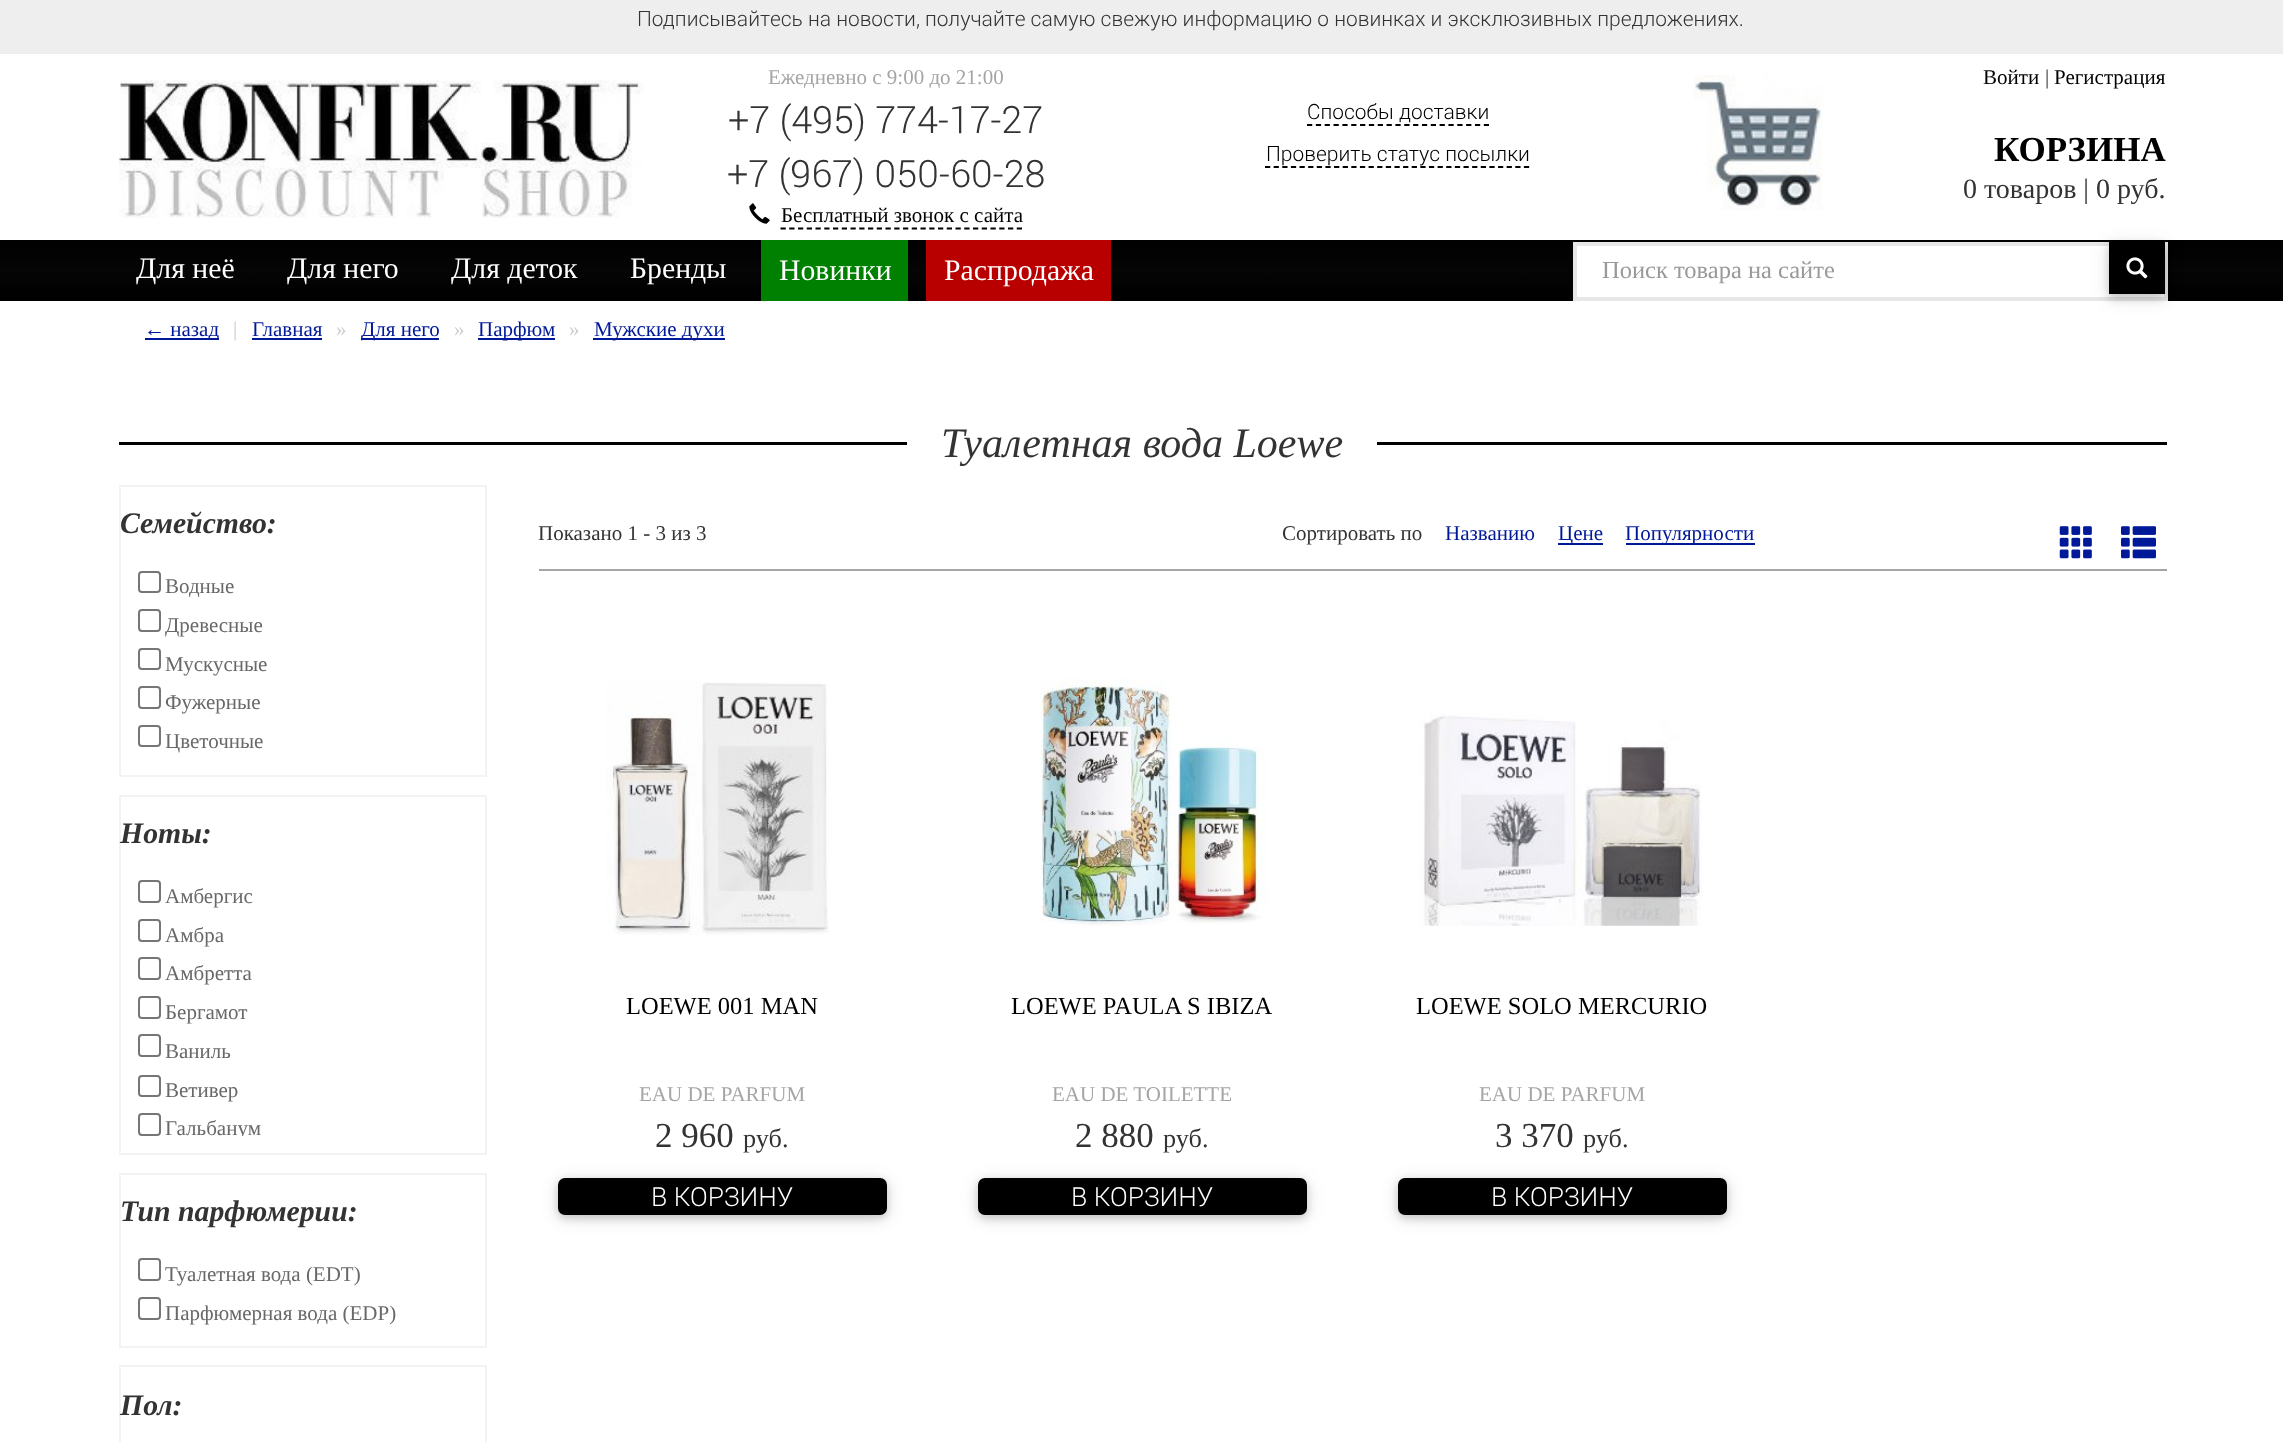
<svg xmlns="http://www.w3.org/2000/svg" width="2283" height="1442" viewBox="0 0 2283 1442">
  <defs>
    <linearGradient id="g1" gradientUnits="userSpaceOnUse" x1="1142" y1="240" x2="1142" y2="301"><stop offset="0" stop-color="rgb(0,0,0)"/><stop offset="0.5" stop-color="rgb(5,5,5)"/><stop offset="1" stop-color="rgb(0,0,0)"/></linearGradient>
    <clipPath id="clip1"><rect x="121" y="873" width="364" height="263"/></clipPath>
  </defs>
  <rect width="100%" height="100%" fill="rgb(255,255,255)"/>
  <rect x="0" y="0" width="2283" height="54" fill="rgb(238,238,238)"/>
  <text x="637" y="26" font-family="Roboto" font-size="21" font-weight="300" fill="rgb(51,51,51)">Подписывайтесь на новости, получайте самую свежую информацию о новинках и эксклюзивных предложениях.</text>
  <image x="119" y="80" width="525" height="138" href="pic1.png"/>
  <text x="768" y="84" font-family="Liberation Serif" font-size="21" fill="rgb(165,165,165)">Ежедневно c 9:00 до 21:00</text>
  <g font-family="Roboto" font-size="37.75" font-weight="300" fill="rgb(51,51,51)">
    <text x="728" y="133">+7 (495) 774-17-27</text>
    <text x="727" y="187">+7 (967) 050-60-28</text>
  </g>
  <image x="749" y="203" width="21" height="21" href="pic2.png"/>
  <text x="781" y="222" font-family="Liberation Serif" font-size="21" fill="rgb(0,0,0)">Бесплатный звонок с сайта</text>
  <path d="M780.5 228.5H1022" fill="none" stroke="rgb(0,0,0)" stroke-width="1.8" stroke-dasharray="5.25 3.5"/>
  <text x="1307" y="119" font-family="Roboto" font-size="21" font-weight="300" fill="rgb(0,0,0)">Способы доставки</text>
  <path d="M1307 125H1489" fill="none" stroke="rgb(0,0,0)" stroke-width="1.8" stroke-dasharray="5.25 3.59"/>
  <text x="1266" y="161" font-family="Roboto" font-size="21" font-weight="300" fill="rgb(0,0,0)">Проверить статус посылки</text>
  <path d="M1265 167H1529.5" fill="none" stroke="rgb(0,0,0)" stroke-width="1.8" stroke-dasharray="5.25 3.38"/>
  <image x="1694" y="75" width="129" height="135" href="pic3.png"/>
  <text x="1983" y="84" font-family="Liberation Serif" font-size="21" fill="rgb(0,0,0)">Войти</text>
  <text x="2045" y="84" font-family="Liberation Serif" font-size="21" fill="rgb(51,51,51)">|</text>
  <text x="2054" y="84" font-family="Liberation Serif" font-size="21" fill="rgb(0,0,0)">Регистрация</text>
  <text x="1994" y="161" font-family="Liberation Serif" font-size="35" font-weight="bold" fill="rgb(0,0,0)">КОРЗИНА</text>
  <text x="1963" y="198" font-family="Liberation Serif" font-size="28" fill="rgb(51,51,51)">0 товаров | 0 руб.</text>
  <rect x="0" y="240" width="2283" height="61" fill="url(#g1)"/>
  <g font-family="Liberation Serif" font-size="29.75" fill="rgb(255,255,255)">
    <text x="136" y="278">Для неё</text>
    <text x="287" y="278">Для него</text>
    <text x="451" y="278">Для деток</text>
    <text x="630" y="278">Бренды</text>
  </g>
  <rect x="761" y="240" width="147" height="61" fill="rgb(0,128,0)"/>
  <text x="779" y="280" font-family="Liberation Serif" font-size="29.75" fill="rgb(255,255,255)">Новинки</text>
  <rect x="926" y="240" width="185" height="61" fill="rgb(185,0,0)"/>
  <text x="944" y="280" font-family="Liberation Serif" font-size="29.75" fill="rgb(255,255,255)">Распродажа</text>
  <rect x="1575" y="244" width="591" height="55" fill="rgb(255,255,255)" stroke="rgb(231,231,231)" stroke-width="4"/>
  <text x="1602" y="278" font-family="Liberation Serif" font-size="24.5" fill="rgb(153,153,153)">Поиск товара на сайте</text>
  <rect x="2109" y="245" width="56" height="53" fill="rgba(0,0,0,0.12)" filter="blur(9px)"/>
  <rect x="2109" y="245" width="56" height="53" fill="rgba(0,0,0,0.16)" filter="blur(4.5px)"/>
  <rect x="2109" y="242" width="56" height="52" fill="rgb(0,0,0)"/>
  <image x="2126" y="257" width="22" height="22" href="pic4.png"/>
  <rect x="145" y="338" width="74" height="2" fill="rgb(0,25,153)"/>
  <text x="144" y="336" font-family="Liberation Serif" font-size="21" fill="rgb(0,25,153)">← назад</text>
  <text x="233" y="336" font-family="Liberation Serif" font-size="21" fill="rgb(204,204,204)">|</text>
  <text x="252" y="336" font-family="Liberation Serif" font-size="21" fill="rgb(0,25,153)">Главная</text>
  <rect x="252" y="338" width="70" height="2" fill="rgb(0,25,153)"/>
  <text x="336" y="336" font-family="Liberation Serif" font-size="21" fill="rgb(204,204,204)">»</text>
  <rect x="361" y="338" width="78" height="2" fill="rgb(0,25,153)"/>
  <text x="361" y="336" font-family="Liberation Serif" font-size="21" fill="rgb(0,25,153)">Для него</text>
  <text x="454" y="336" font-family="Liberation Serif" font-size="21" fill="rgb(204,204,204)">»</text>
  <rect x="478" y="338" width="77" height="2" fill="rgb(0,25,153)"/>
  <text x="478" y="336" font-family="Liberation Serif" font-size="21" fill="rgb(0,25,153)">Парфюм</text>
  <text x="569" y="336" font-family="Liberation Serif" font-size="21" fill="rgb(204,204,204)">»</text>
  <rect x="593" y="338" width="132" height="2" fill="rgb(0,25,153)"/>
  <text x="594" y="336" font-family="Liberation Serif" font-size="21" fill="rgb(0,25,153)">Мужские духи</text>
  <rect x="119" y="442" width="2048" height="3" fill="rgb(0,0,0)"/>
  <rect x="907" y="442" width="470" height="3" fill="rgb(255,255,255)"/>
  <text x="941" y="457" font-family="Liberation Serif" font-size="42" font-style="italic" fill="rgb(51,51,51)">Туалетная вода Loewe</text>
  <rect x="120" y="486" width="366" height="290" fill="none" stroke="rgb(243,243,243)" stroke-width="2"/>
  <text x="120" y="533" font-family="Liberation Serif" font-size="29.75" font-weight="bold" font-style="italic" fill="rgb(51,51,51)">Семейство:</text>
  <rect x="139" y="572" width="21" height="20" rx="3" fill="none" stroke="rgb(118,118,118)" stroke-width="2"/>
  <text x="165" y="593" font-family="Liberation Serif" font-size="21" fill="rgb(104,104,104)">Водные</text>
  <rect x="139" y="610" width="21" height="21" rx="3" fill="none" stroke="rgb(118,118,118)" stroke-width="2"/>
  <text x="165" y="632" font-family="Liberation Serif" font-size="21" fill="rgb(104,104,104)">Древесные</text>
  <rect x="139" y="649" width="21" height="20" rx="3" fill="none" stroke="rgb(118,118,118)" stroke-width="2"/>
  <text x="165" y="671" font-family="Liberation Serif" font-size="21" fill="rgb(104,104,104)">Мускусные</text>
  <rect x="139" y="687" width="21" height="21" rx="3" fill="none" stroke="rgb(118,118,118)" stroke-width="2"/>
  <text x="165" y="709" font-family="Liberation Serif" font-size="21" fill="rgb(104,104,104)">Фужерные</text>
  <rect x="139" y="726" width="21" height="20" rx="3" fill="none" stroke="rgb(118,118,118)" stroke-width="2"/>
  <text x="165" y="748" font-family="Liberation Serif" font-size="21" fill="rgb(104,104,104)">Цветочные</text>
  <rect x="120" y="796" width="366" height="358" fill="none" stroke="rgb(243,243,243)" stroke-width="2"/>
  <text x="120" y="843" font-family="Liberation Serif" font-size="29.75" font-weight="bold" font-style="italic" fill="rgb(51,51,51)">Ноты:</text>
  <rect x="139" y="881" width="21" height="21" rx="3" fill="none" stroke="rgb(118,118,118)" stroke-width="2"/>
  <text x="165" y="903" font-family="Liberation Serif" font-size="21" fill="rgb(104,104,104)">Амбергис</text>
  <rect x="139" y="920" width="21" height="21" rx="3" fill="none" stroke="rgb(118,118,118)" stroke-width="2"/>
  <text x="165" y="942" font-family="Liberation Serif" font-size="21" fill="rgb(104,104,104)">Амбра</text>
  <rect x="139" y="958" width="21" height="21" rx="3" fill="none" stroke="rgb(118,118,118)" stroke-width="2"/>
  <text x="165" y="980" font-family="Liberation Serif" font-size="21" fill="rgb(104,104,104)">Амбретта</text>
  <rect x="139" y="997" width="21" height="21" rx="3" fill="none" stroke="rgb(118,118,118)" stroke-width="2"/>
  <text x="165" y="1019" font-family="Liberation Serif" font-size="21" fill="rgb(104,104,104)">Бергамот</text>
  <rect x="139" y="1035" width="21" height="21" rx="3" fill="none" stroke="rgb(118,118,118)" stroke-width="2"/>
  <text x="165" y="1058" font-family="Liberation Serif" font-size="21" fill="rgb(104,104,104)">Ваниль</text>
  <rect x="139" y="1076" width="21" height="20" rx="3" fill="none" stroke="rgb(118,118,118)" stroke-width="2"/>
  <text x="165" y="1097" font-family="Liberation Serif" font-size="21" fill="rgb(104,104,104)">Ветивер</text>
  <rect x="139" y="1114" width="21" height="21" rx="3" fill="none" stroke="rgb(118,118,118)" stroke-width="2"/>
  <g clip-path="url(#clip1)">
    <text x="165" y="1135" font-family="Liberation Serif" font-size="21" fill="rgb(104,104,104)">Гальбанум</text>
  </g>
  <rect x="120" y="1174" width="366" height="173" fill="none" stroke="rgb(243,243,243)" stroke-width="2"/>
  <text x="120" y="1221" font-family="Liberation Serif" font-size="29.75" font-weight="bold" font-style="italic" fill="rgb(51,51,51)">Тип парфюмерии:</text>
  <rect x="139" y="1259" width="21" height="21" rx="3" fill="none" stroke="rgb(118,118,118)" stroke-width="2"/>
  <text x="165" y="1281" font-family="Liberation Serif" font-size="21" fill="rgb(104,104,104)">Туалетная вода (EDT)</text>
  <rect x="139" y="1298" width="21" height="21" rx="3" fill="none" stroke="rgb(118,118,118)" stroke-width="2"/>
  <text x="165" y="1320" font-family="Liberation Serif" font-size="21" fill="rgb(104,104,104)">Парфюмерная вода (EDP)</text>
  <rect x="120" y="1366" width="366" height="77" fill="none" stroke="rgb(243,243,243)" stroke-width="2"/>
  <text x="120" y="1415" font-family="Liberation Serif" font-size="29.75" font-weight="bold" font-style="italic" fill="rgb(51,51,51)">Пол:</text>
  <g font-family="Liberation Serif" font-size="21" fill="rgb(51,51,51)">
    <text x="538" y="540">Показано 1 - 3 из 3</text>
    <text x="1282" y="540">Сортировать по</text>
  </g>
  <text x="1445" y="540" font-family="Liberation Serif" font-size="21" fill="rgb(0,25,153)">Названию</text>
  <rect x="1558" y="543" width="45" height="2" fill="rgb(0,25,153)"/>
  <text x="1558" y="540" font-family="Liberation Serif" font-size="21" fill="rgb(0,25,153)">Цене</text>
  <rect x="1626" y="543" width="129" height="2" fill="rgb(0,25,153)"/>
  <text x="1625" y="540" font-family="Liberation Serif" font-size="21" fill="rgb(0,25,153)">Популярности</text>
  <image x="2059" y="526" width="33" height="33" href="pic5.png"/>
  <image x="2121" y="526" width="35" height="33" href="pic6.png"/>
  <rect x="539" y="569" width="1628" height="2" fill="rgb(165,165,165)"/>
  <image x="606" y="682" width="223" height="253" href="pic7.png"/>
  <text x="626" y="1014" font-family="Liberation Serif" font-size="24.5" fill="rgb(0,0,0)">LOEWE 001 MAN</text>
  <text x="639" y="1101" font-family="Liberation Serif" font-size="21" fill="rgb(165,165,165)">EAU DE PARFUM</text>
  <text x="655" y="1147" font-family="Liberation Serif" font-size="35" fill="rgb(51,51,51)">2 960</text>
  <text x="743" y="1147" font-family="Liberation Serif" font-size="26.25" fill="rgb(51,51,51)">руб.</text>
  <rect x="558" y="1181" width="329" height="37" rx="7" fill="rgba(0,0,0,0.12)" filter="blur(9px)"/>
  <rect x="558" y="1181" width="329" height="37" rx="7" fill="rgba(0,0,0,0.16)" filter="blur(4.5px)"/>
  <rect x="558" y="1178" width="329" height="37" rx="7" fill="rgb(0,0,0)"/>
  <text x="651" y="1206" font-family="Roboto" font-size="26.25" font-weight="300" fill="rgb(255,255,255)">В КОРЗИНУ</text>
  <image x="1040" y="678" width="227" height="248" href="pic8.png"/>
  <text x="1011" y="1014" font-family="Liberation Serif" font-size="24.5" fill="rgb(0,0,0)">LOEWE PAULA S IBIZA</text>
  <text x="1052" y="1101" font-family="Liberation Serif" font-size="21" fill="rgb(165,165,165)">EAU DE TOILETTE</text>
  <text x="1075" y="1147" font-family="Liberation Serif" font-size="35" fill="rgb(51,51,51)">2 880</text>
  <text x="1163" y="1147" font-family="Liberation Serif" font-size="26.25" fill="rgb(51,51,51)">руб.</text>
  <rect x="978" y="1181" width="329" height="37" rx="7" fill="rgba(0,0,0,0.12)" filter="blur(9px)"/>
  <rect x="978" y="1181" width="329" height="37" rx="7" fill="rgba(0,0,0,0.16)" filter="blur(4.5px)"/>
  <rect x="978" y="1178" width="329" height="37" rx="7" fill="rgb(0,0,0)"/>
  <text x="1071" y="1206" font-family="Roboto" font-size="26.25" font-weight="300" fill="rgb(255,255,255)">В КОРЗИНУ</text>
  <image x="1419" y="713" width="283" height="213" href="pic9.png"/>
  <text x="1416" y="1014" font-family="Liberation Serif" font-size="24.5" fill="rgb(0,0,0)">LOEWE SOLO MERCURIO</text>
  <text x="1479" y="1101" font-family="Liberation Serif" font-size="21" fill="rgb(165,165,165)">EAU DE PARFUM</text>
  <text x="1495" y="1147" font-family="Liberation Serif" font-size="35" fill="rgb(51,51,51)">3 370</text>
  <text x="1583" y="1147" font-family="Liberation Serif" font-size="26.25" fill="rgb(51,51,51)">руб.</text>
  <rect x="1398" y="1181" width="329" height="37" rx="7" fill="rgba(0,0,0,0.12)" filter="blur(9px)"/>
  <rect x="1398" y="1181" width="329" height="37" rx="7" fill="rgba(0,0,0,0.16)" filter="blur(4.5px)"/>
  <rect x="1398" y="1178" width="329" height="37" rx="7" fill="rgb(0,0,0)"/>
  <text x="1491" y="1206" font-family="Roboto" font-size="26.25" font-weight="300" fill="rgb(255,255,255)">В КОРЗИНУ</text>
</svg>
